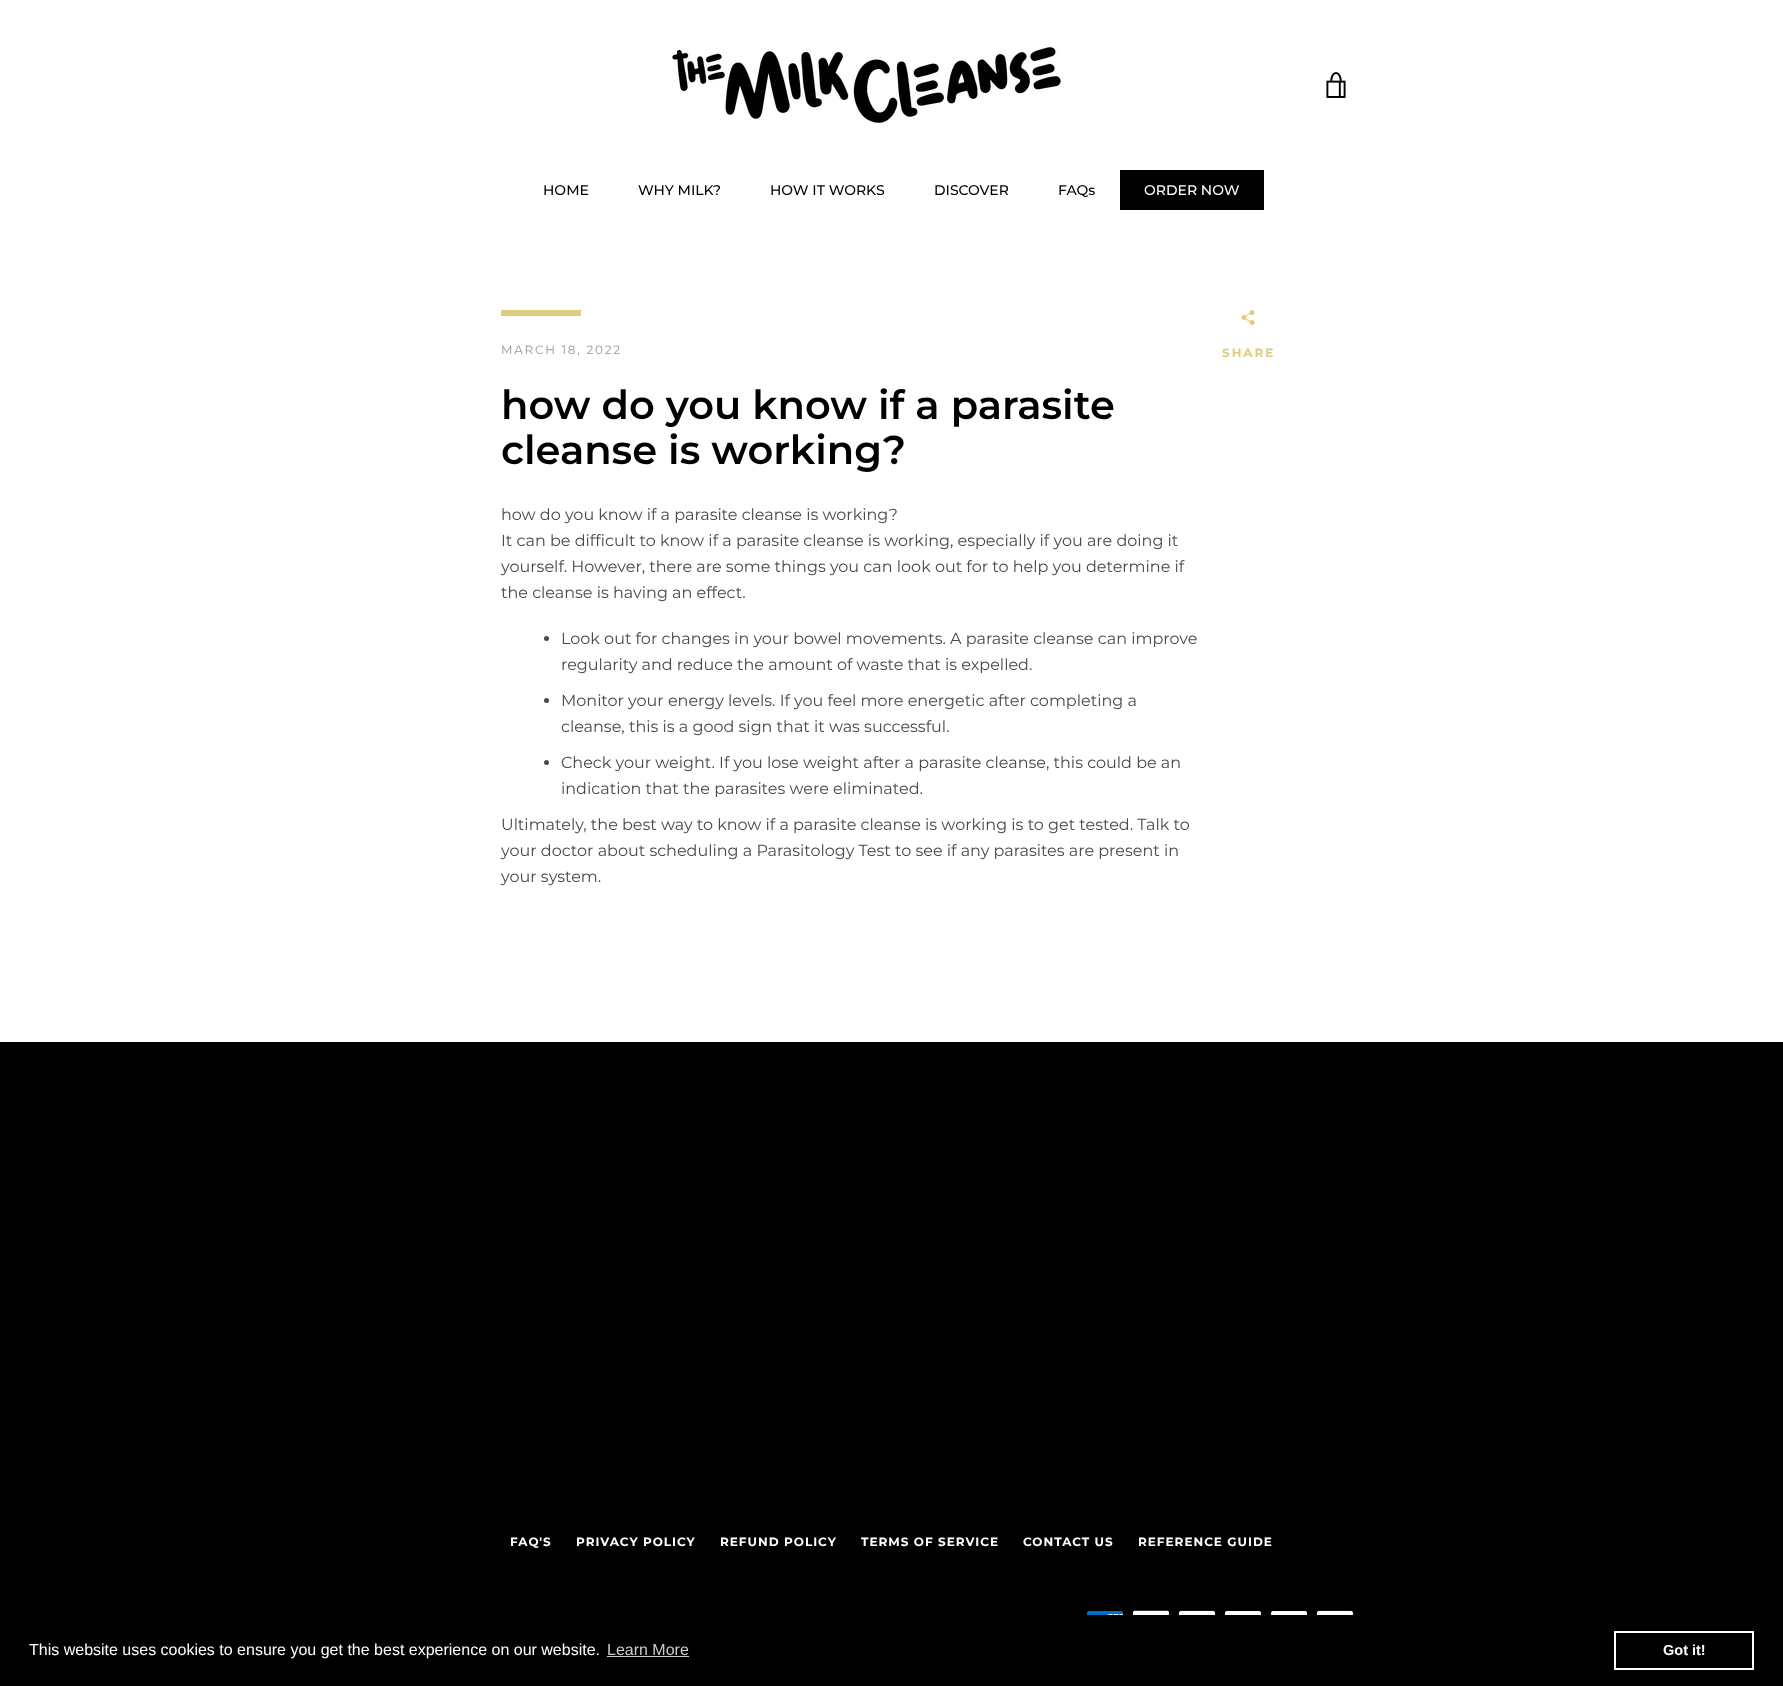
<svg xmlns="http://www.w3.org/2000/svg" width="1783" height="1686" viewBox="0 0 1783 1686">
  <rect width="100%" height="100%" fill="rgb(0,0,0)"/>
  <rect x="0" y="0" width="1783" height="1042" fill="rgb(255,255,255)"/>
  <image x="672" y="45" width="390" height="78" href="pic1.png"/>
  <image x="1326" y="72" width="20" height="26" href="pic2.png"/>
  <g font-family="Montserrat" font-size="14" font-weight="100" fill="rgb(0,0,0)">
    <text x="543" y="195">HOME</text>
    <text x="638" y="195">WHY MILK?</text>
    <text x="770" y="195">HOW IT WORKS</text>
    <text x="934" y="195">DISCOVER</text>
    <text x="1058" y="195">FAQs</text>
  </g>
  <rect x="1120" y="170" width="144" height="40" fill="rgb(0,0,0)"/>
  <text x="1144" y="195" font-family="Montserrat" font-size="14" font-weight="100" fill="rgb(255,255,255)">ORDER NOW</text>
  <rect x="501" y="310" width="80" height="6" fill="rgb(222,205,127)"/>
  <text x="501" y="354" font-family="Montserrat" font-size="12" letter-spacing="1.75" fill="rgb(151,151,151)">MARCH 18, 2022</text>
  <g font-family="Montserrat" font-size="40" font-weight="600" fill="rgb(0,0,0)">
    <text>
      <tspan x="501" y="419">how do you know if a parasite</tspan>
      <tspan x="501" y="464">cleanse is working?</tspan>
    </text>
  </g>
  <g font-family="Montserrat" font-size="16" fill="rgb(74,74,74)">
    <text>
      <tspan x="501" y="520">how do you know if a parasite cleanse is working?</tspan>
      <tspan x="501" y="546">It can be difficult to know if a parasite cleanse is working, especially if you are doing it</tspan>
      <tspan x="501" y="572">yourself. However, there are some things you can look out for to help you determine if</tspan>
      <tspan x="501" y="598">the cleanse is having an effect.</tspan>
    </text>
  </g>
  <circle cx="546.5" cy="638.5" r="2.5" fill="rgb(74,74,74)"/>
  <g font-family="Montserrat" font-size="16" fill="rgb(74,74,74)">
    <text>
      <tspan x="561" y="644">Look out for changes in your bowel movements. A parasite cleanse can improve</tspan>
      <tspan x="561" y="670">regularity and reduce the amount of waste that is expelled.</tspan>
    </text>
  </g>
  <circle cx="546.5" cy="700.5" r="2.5" fill="rgb(74,74,74)"/>
  <g font-family="Montserrat" font-size="16" fill="rgb(74,74,74)">
    <text>
      <tspan x="561" y="706">Monitor your energy levels. If you feel more energetic after completing a</tspan>
      <tspan x="561" y="732">cleanse, this is a good sign that it was successful.</tspan>
    </text>
  </g>
  <circle cx="546.5" cy="762.5" r="2.5" fill="rgb(74,74,74)"/>
  <g font-family="Montserrat" font-size="16" fill="rgb(74,74,74)">
    <text>
      <tspan x="561" y="768">Check your weight. If you lose weight after a parasite cleanse, this could be an</tspan>
      <tspan x="561" y="794">indication that the parasites were eliminated.</tspan>
    </text>
    <text>
      <tspan x="501" y="830">Ultimately, the best way to know if a parasite cleanse is working is to get tested. Talk to</tspan>
      <tspan x="501" y="856">your doctor about scheduling a Parasitology Test to see if any parasites are present in</tspan>
      <tspan x="501" y="882">your system.</tspan>
    </text>
  </g>
  <image x="1241" y="310" width="14" height="15" href="pic3.png"/>
  <text x="1222" y="357" font-family="Montserrat" font-size="12" font-weight="bold" letter-spacing="2" fill="rgb(222,205,127)">SHARE</text>
  <g font-family="Montserrat" font-size="12" font-weight="bold" letter-spacing="1" fill="rgb(255,255,255)">
    <text x="510" y="1546">FAQ'S</text>
    <text x="576" y="1546">PRIVACY POLICY</text>
    <text x="720" y="1546">REFUND POLICY</text>
    <text x="861" y="1546">TERMS OF SERVICE</text>
    <text x="1023" y="1546">CONTACT US</text>
    <text x="1138" y="1546">REFERENCE GUIDE</text>
  </g>
  <image x="1087" y="1611" width="36" height="4" href="pic4.png"/>
  <image x="1133" y="1610" width="36" height="5" href="pic5.png"/>
  <image x="1178" y="1610" width="38" height="5" href="pic6.png"/>
  <image x="1225" y="1611" width="37" height="4" href="pic7.png"/>
  <image x="1271" y="1611" width="36" height="4" href="pic8.png"/>
  <image x="1316" y="1610" width="38" height="5" href="pic6.png"/>
  <text x="29" y="1655" font-family="Liberation Sans" font-size="16" fill="rgb(255,255,255)">This website uses cookies to ensure you get the best experience on our website.</text>
  <text x="607" y="1655" font-family="Liberation Sans" font-size="16" fill="rgb(204,204,204)">Learn More</text>
  <rect x="607" y="1656" width="82" height="1" fill="rgb(204,204,204)"/>
  <rect x="1615" y="1632" width="138" height="37" fill="none" stroke="rgb(255,255,255)" stroke-width="2"/>
  <text x="1663" y="1655" font-family="Liberation Sans" font-size="14.5" font-weight="bold" fill="rgb(255,255,255)">Got it!</text>
</svg>
